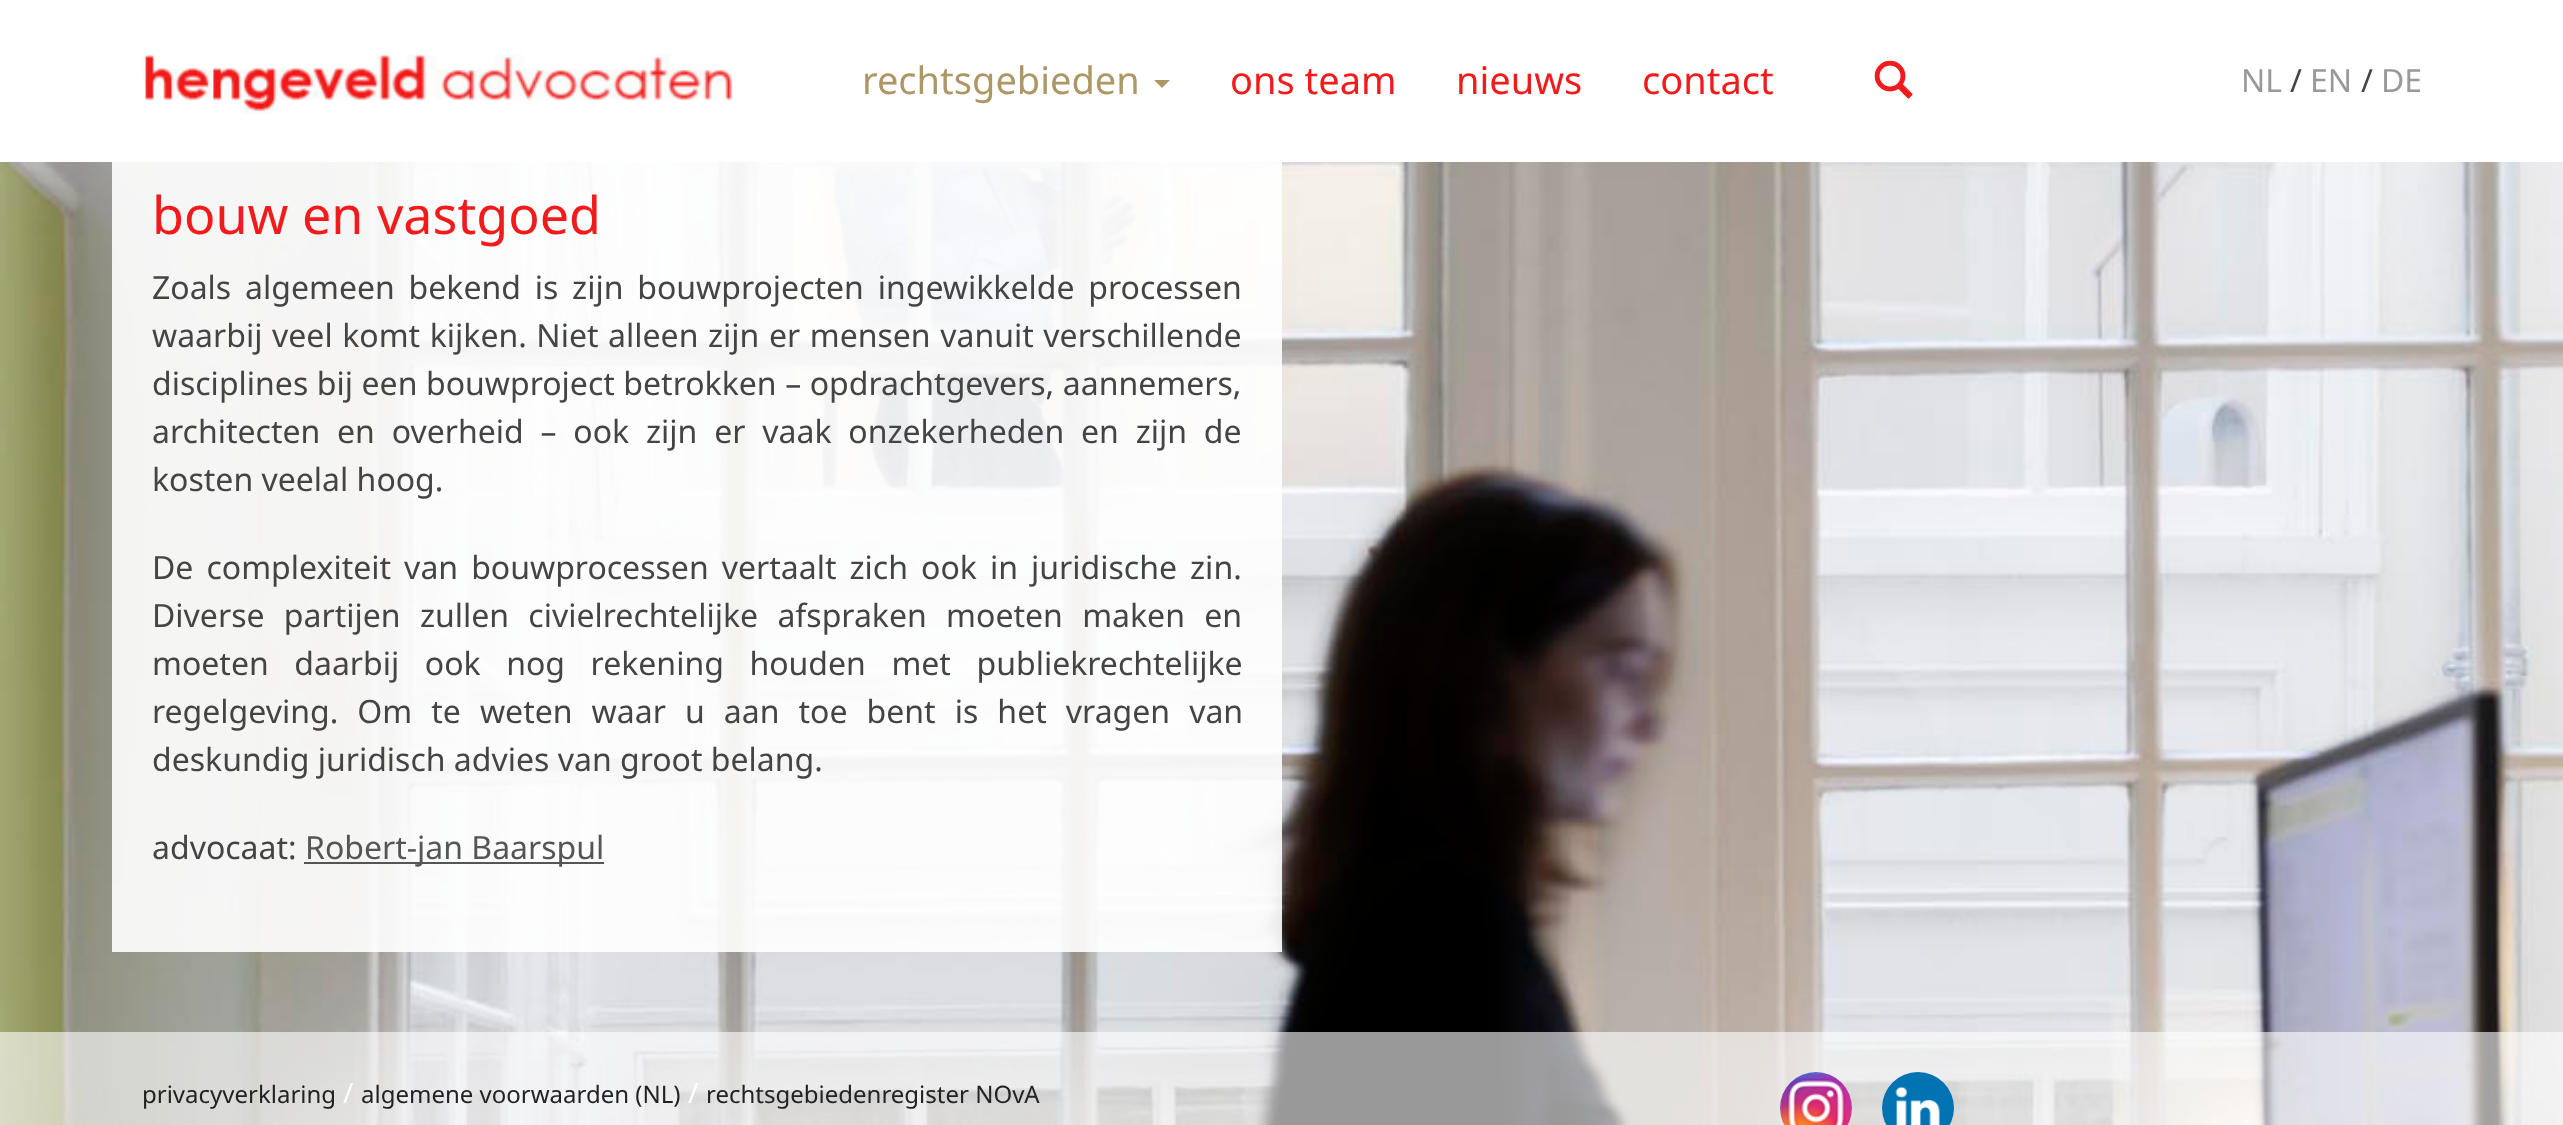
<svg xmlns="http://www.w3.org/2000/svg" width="2563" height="1125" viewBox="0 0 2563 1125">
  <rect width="100%" height="100%" fill="rgb(255,255,255)"/>
  <image x="142" y="53" width="591" height="61" href="pic1.png"/>
  <text x="862" y="94" font-family="Noto Sans" font-size="38" fill="rgb(172,151,101)">rechtsgebieden</text>
  <path d="M1154 80H1170L1162 88Z" fill="rgb(172,151,101)"/>
  <g font-family="Noto Sans" font-size="38" fill="rgb(242,26,26)">
    <text x="1230" y="94">ons team</text>
    <text x="1456" y="94">nieuws</text>
    <text x="1642" y="94">contact</text>
  </g>
  <image x="1874" y="60" width="39" height="39" href="pic2.png"/>
  <text x="2241" y="92" font-family="Noto Sans" font-size="32" fill="rgb(153,153,153)">NL</text>
  <text x="2290" y="92" font-family="Noto Sans" font-size="32" fill="rgb(68,68,68)">/</text>
  <text x="2310" y="92" font-family="Noto Sans" font-size="32" fill="rgb(153,153,153)">EN</text>
  <text x="2361" y="92" font-family="Noto Sans" font-size="32" fill="rgb(68,68,68)">/</text>
  <text x="2381" y="92" font-family="Noto Sans" font-size="32" fill="rgb(153,153,153)">DE</text>
  <image x="0" y="162" width="2563" height="963" href="pic3.png"/>
  <rect x="112" y="162" width="1170" height="790" fill="rgba(255,255,255,0.9)"/>
  <text x="152" y="234" font-family="Noto Sans" font-size="52" fill="rgb(242,26,26)">bouw en vastgoed</text>
  <g font-family="Noto Sans" font-size="32" fill="rgb(68,68,68)">
    <text>
      <tspan x="152" y="299" word-spacing="5.5">Zoals algemeen bekend is zijn bouwprojecten ingewikkelde processen</tspan>
      <tspan x="152" y="347" word-spacing="1.25">waarbij veel komt kijken. Niet alleen zijn er mensen vanuit verschillende</tspan>
      <tspan x="152" y="395" word-spacing="0.25">disciplines bij een bouwproject betrokken – opdrachtgevers, aannemers,</tspan>
      <tspan x="152" y="443" word-spacing="8.5">architecten en overheid – ook zijn er vaak onzekerheden en zijn de</tspan>
      <tspan x="152" y="491">kosten veelal hoog.</tspan>
    </text>
    <text>
      <tspan x="152" y="579" word-spacing="4.75">De complexiteit van bouwprocessen vertaalt zich ook in juridische zin.</tspan>
      <tspan x="152" y="627" word-spacing="11">Diverse partijen zullen civielrechtelijke afspraken moeten maken en</tspan>
      <tspan x="152" y="675" word-spacing="17.25">moeten daarbij ook nog rekening houden met publiekrechtelijke</tspan>
      <tspan x="152" y="723" word-spacing="10.75">regelgeving. Om te weten waar u aan toe bent is het vragen van</tspan>
      <tspan x="152" y="771">deskundig juridisch advies van groot belang.</tspan>
    </text>
    <text x="152" y="859">advocaat:</text>
  </g>
  <rect x="304" y="862" width="300" height="2" fill="rgb(85,85,85)"/>
  <text x="305" y="859" font-family="Noto Sans" font-size="32" fill="rgb(85,85,85)">Robert-jan Baarspul</text>
  <rect x="0" y="1032" width="2563" height="93" fill="rgba(255,255,255,0.6)"/>
  <text x="142" y="1103" font-family="Noto Sans" font-size="24" fill="rgb(34,34,34)">privacyverklaring</text>
  <text x="343" y="1103" font-family="Noto Sans" font-size="28" fill="rgb(255,255,255)">/</text>
  <text x="361" y="1103" font-family="Noto Sans" font-size="24" fill="rgb(34,34,34)">algemene voorwaarden (NL)</text>
  <text x="688" y="1103" font-family="Noto Sans" font-size="28" fill="rgb(255,255,255)">/</text>
  <text x="706" y="1103" font-family="Noto Sans" font-size="24" fill="rgb(34,34,34)">rechtsgebiedenregister NOvA</text>
  <image x="1780" y="1072" width="72" height="53" href="pic4.png"/>
  <image x="1882" y="1072" width="72" height="53" href="pic5.png"/>
</svg>
